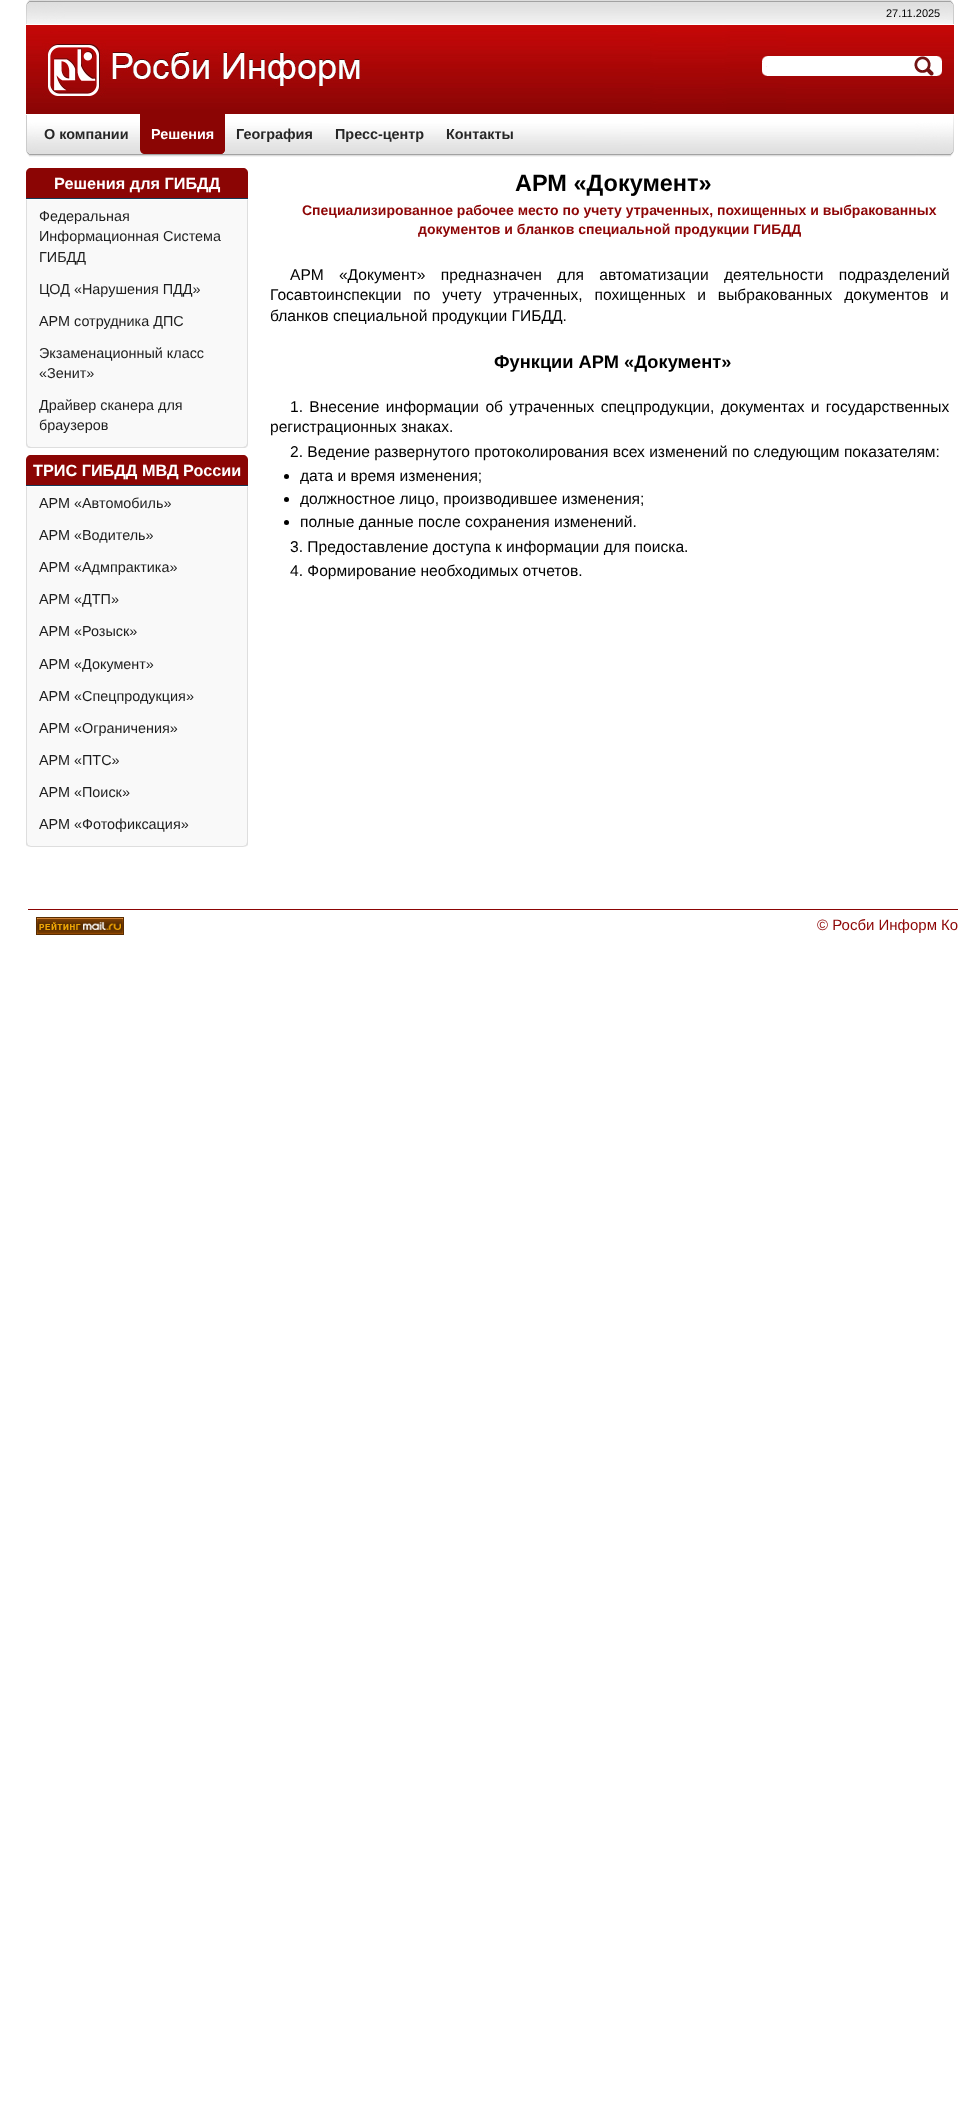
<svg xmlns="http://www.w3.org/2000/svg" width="976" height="2118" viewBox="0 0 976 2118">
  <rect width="100%" height="100%" fill="rgb(255,255,255)"/>
  <image x="26" y="0" width="928" height="24" href="pic3.png"/>
  <text x="886" y="17" font-family="Liberation Sans" font-size="11" fill="rgb(0,0,0)">27.11.2025</text>
  <image x="26" y="25" width="928" height="89" href="pic4.png"/>
  <image x="762" y="56" width="180" height="20" href="pic1.png"/>
  <image x="914" y="56" width="20" height="20" href="pic2.png"/>
  <image x="26" y="115" width="928" height="42" href="pic5.png"/>
  <text x="44" y="139" font-family="Liberation Sans" font-size="14.4" font-weight="bold" fill="rgb(38,38,38)">О компании</text>
  <path d="M140 114H225V149C225 152 223 154 220 154H145C142 154 140 152 140 149Z" fill="rgb(139,5,4)"/>
  <path d="M151 114H225V149C225 152 223 154 220 154H156C153 154 151 152 151 149Z" fill="rgb(139,5,4)"/>
  <text x="151" y="139" font-family="Liberation Sans" font-size="14.4" font-weight="bold" fill="rgb(255,255,255)">Решения</text>
  <g font-family="Liberation Sans" font-size="14.4" font-weight="bold" fill="rgb(38,38,38)">
    <text x="236" y="139">География</text>
    <text x="335" y="139">Пресс-центр</text>
    <text x="446" y="139">Контакты</text>
  </g>
  <path d="M31 168H243C246 168 248 170 248 173V199H26V173C26 170 28 168 31 168Z" fill="rgb(139,5,4)"/>
  <rect x="26" y="198" width="222" height="1" fill="rgb(21,59,88)"/>
  <text x="54" y="189" font-family="Liberation Sans" font-size="16.25" font-weight="bold" fill="rgb(255,255,255)">Решения для ГИБДД</text>
  <path d="M26 199H248V443C248 446 246 448 243 448H31C28 448 26 446 26 443Z" fill="rgb(249,249,249)"/>
  <path d="M26 199L27 200H247L248 199Z" fill="rgb(255,255,255)"/>
  <path d="M248 199L247 200V443C247 444 246 445 246 446L247 447C248 446 248 444 248 443Z" fill="rgb(222,222,222)"/>
  <path d="M31 448H243C244 448 246 448 247 447L246 446L243 447H31L28 446L27 447C28 448 30 448 31 448Z" fill="rgb(222,222,222)"/>
  <path d="M27 200L26 199V443C26 444 26 446 27 447L28 446L27 443Z" fill="rgb(222,222,222)"/>
  <g font-family="Liberation Sans" font-size="14.4" fill="rgb(29,29,29)">
    <text>
      <tspan x="39" y="221">Федеральная</tspan>
      <tspan x="39" y="241">Информационная Система</tspan>
      <tspan x="39" y="262">ГИБДД</tspan>
    </text>
    <text x="39" y="294">ЦОД «Нарушения ПДД»</text>
    <text x="39" y="326">АРМ сотрудника ДПС</text>
    <text>
      <tspan x="39" y="358">Экзаменационный класс</tspan>
      <tspan x="39" y="378">«Зенит»</tspan>
    </text>
    <text>
      <tspan x="39" y="410">Драйвер сканера для</tspan>
      <tspan x="39" y="430">браузеров</tspan>
    </text>
  </g>
  <path d="M31 455H243C246 455 248 457 248 460V486H26V460C26 457 28 455 31 455Z" fill="rgb(139,5,4)"/>
  <rect x="26" y="485" width="222" height="1" fill="rgb(21,59,88)"/>
  <text x="33" y="476" font-family="Liberation Sans" font-size="16.25" font-weight="bold" fill="rgb(255,255,255)">ТРИС ГИБДД МВД России</text>
  <path d="M26 486H248V842C248 845 246 847 243 847H31C28 847 26 845 26 842Z" fill="rgb(249,249,249)"/>
  <path d="M26 486L27 487H247L248 486Z" fill="rgb(255,255,255)"/>
  <path d="M248 486L247 487V842L246 845L247 846C248 845 248 844 248 842Z" fill="rgb(222,222,222)"/>
  <path d="M31 847H243C244 847 246 846 247 846L246 845L243 846H31L28 845L27 846C28 846 30 847 31 847Z" fill="rgb(222,222,222)"/>
  <path d="M27 487L26 486V842C26 844 26 845 27 846L28 845L27 842Z" fill="rgb(222,222,222)"/>
  <g font-family="Liberation Sans" font-size="14.4" fill="rgb(29,29,29)">
    <text x="39" y="508">АРМ «Автомобиль»</text>
    <text x="39" y="540">АРМ «Водитель»</text>
    <text x="39" y="572">АРМ «Адмпрактика»</text>
    <text x="39" y="604">АРМ «ДТП»</text>
    <text x="39" y="636">АРМ «Розыск»</text>
    <text x="39" y="669">АРМ «Документ»</text>
    <text x="39" y="701">АРМ «Спецпродукция»</text>
    <text x="39" y="733">АРМ «Ограничения»</text>
    <text x="39" y="765">АРМ «ПТС»</text>
    <text x="39" y="797">АРМ «Поиск»</text>
    <text x="39" y="829">АРМ «Фотофиксация»</text>
  </g>
  <text x="515" y="191" font-family="Liberation Sans" font-size="23.5" font-weight="bold" fill="rgb(0,0,0)">АРМ «Документ»</text>
  <g font-family="Liberation Sans" font-size="14" font-weight="bold" fill="rgb(141,5,5)">
    <text x="302" y="215">Специализированное рабочее место по учету утраченных, похищенных и выбракованных</text>
    <text x="418" y="234">документов и бланков специальной продукции ГИБДД</text>
  </g>
  <g font-family="Liberation Sans" font-size="15.6" fill="rgb(0,0,0)">
    <text x="290" y="280" word-spacing="11">АРМ «Документ» предназначен для автоматизации деятельности подразделений</text>
    <text x="270" y="300" word-spacing="7.5">Госавтоинспекции по учету утраченных, похищенных и выбракованных документов</text>
    <text x="940" y="300">и</text>
    <text x="270" y="321">бланков специальной продукции ГИБДД.</text>
  </g>
  <text x="494" y="368" font-family="Liberation Sans" font-size="18.25" font-weight="bold" fill="rgb(0,0,0)">Функции АРМ «Документ»</text>
  <g font-family="Liberation Sans" font-size="15.6" fill="rgb(0,0,0)">
    <text x="290" y="412" word-spacing="2">1. Внесение информации об утраченных спецпродукции, документах и государственных</text>
    <text x="270" y="432">регистрационных знаках.</text>
    <text x="290" y="457">2. Ведение развернутого протоколирования всех изменений по следующим показателям:</text>
  </g>
  <circle cx="286.5" cy="476.5" r="2.5" fill="rgb(0,0,0)"/>
  <text x="300" y="481" font-family="Liberation Sans" font-size="15.6" fill="rgb(0,0,0)">дата и время изменения;</text>
  <circle cx="286.5" cy="499.5" r="2.5" fill="rgb(0,0,0)"/>
  <text x="300" y="504" font-family="Liberation Sans" font-size="15.6" fill="rgb(0,0,0)">должностное лицо, производившее изменения;</text>
  <circle cx="286.5" cy="522.5" r="2.5" fill="rgb(0,0,0)"/>
  <g font-family="Liberation Sans" font-size="15.6" fill="rgb(0,0,0)">
    <text x="300" y="527">полные данные после сохранения изменений.</text>
    <text>
      <tspan x="290" y="552">3. Предоставление доступа к информации для поиска.</tspan>
      <tspan x="290" y="576">4. Формирование необходимых отчетов.</tspan>
    </text>
  </g>
  <rect x="28" y="909" width="930" height="1" fill="rgb(139,5,4)"/>
  <image x="36" y="917" width="88" height="18" href="pic6.png"/>
  <text x="817" y="930" font-family="Liberation Sans" font-size="15" fill="rgb(141,5,5)">© Росби Информ Ко</text>
</svg>
